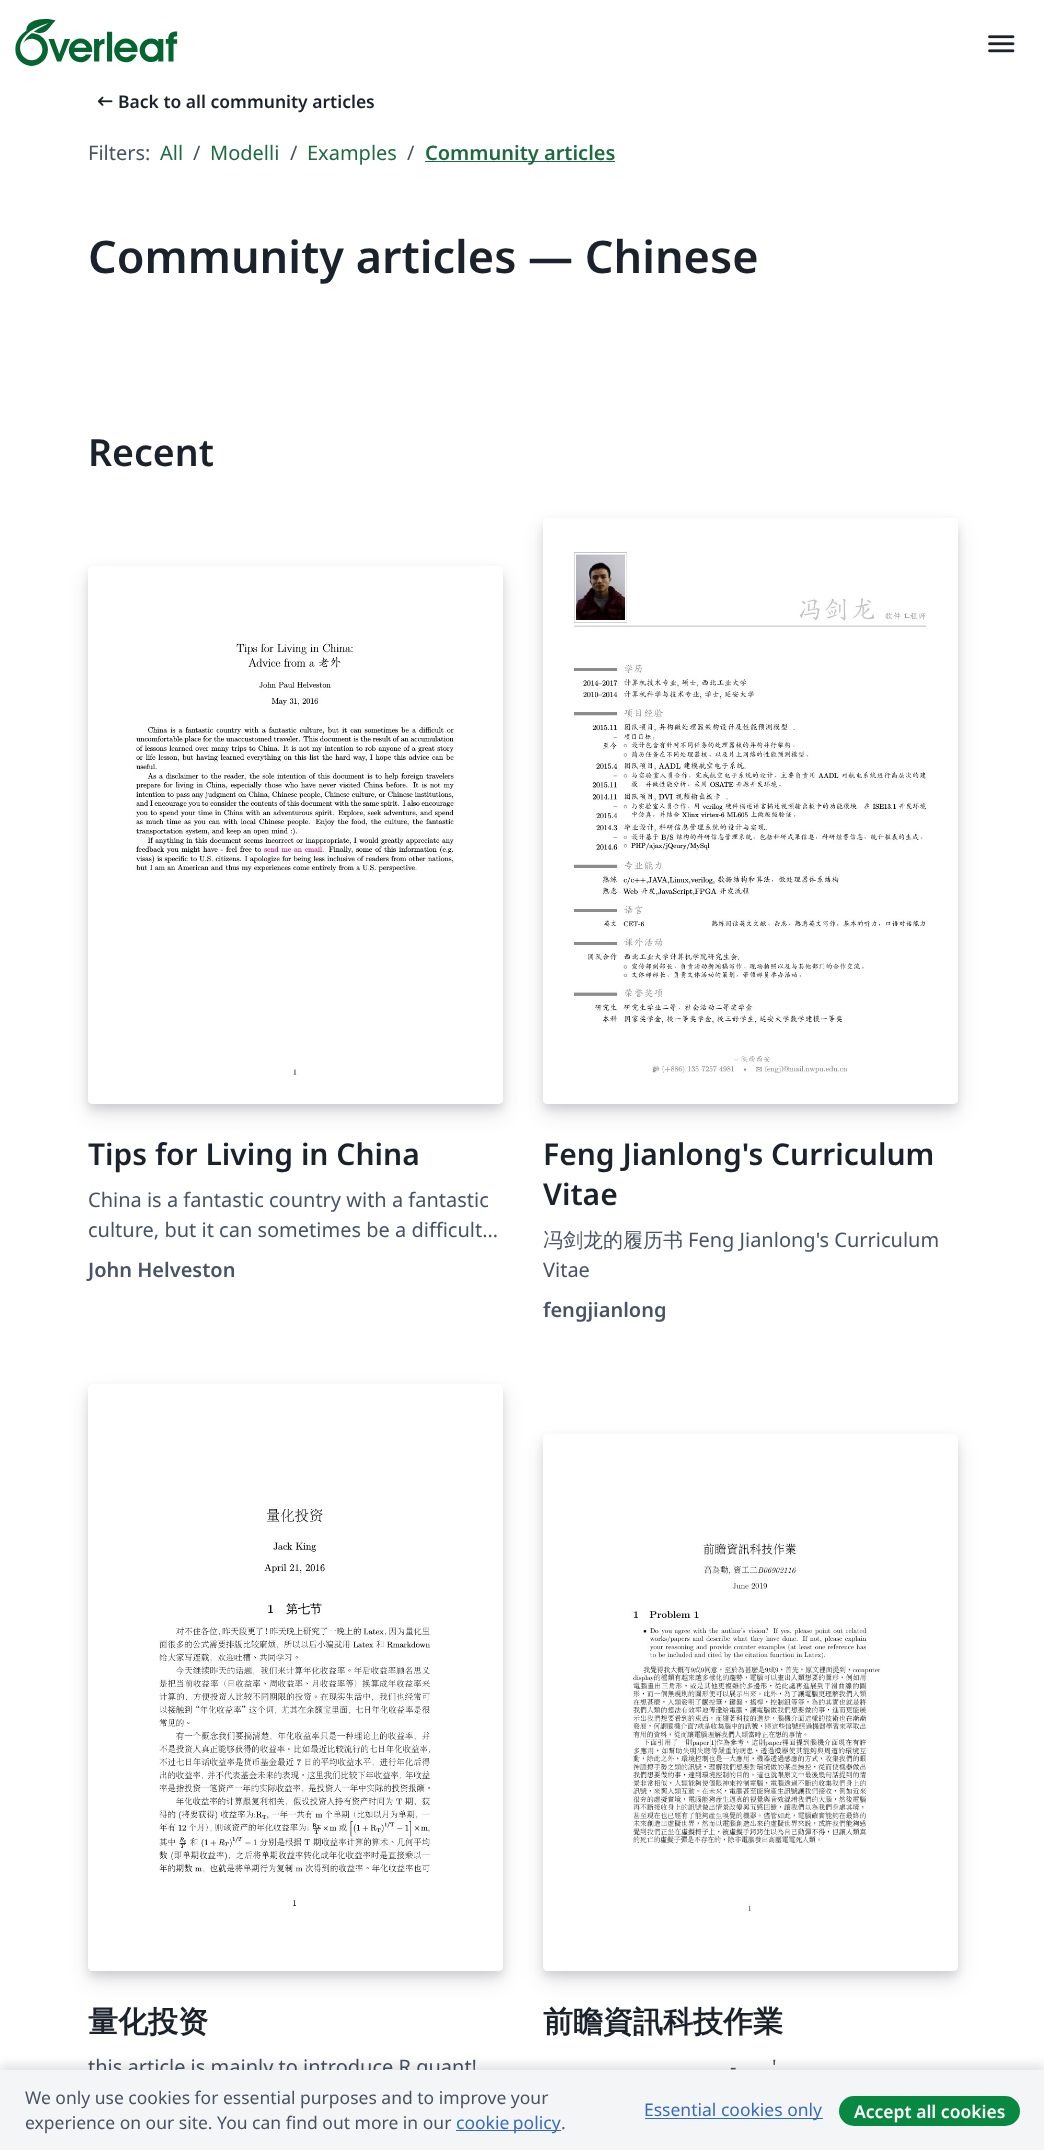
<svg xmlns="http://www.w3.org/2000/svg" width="1044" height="2150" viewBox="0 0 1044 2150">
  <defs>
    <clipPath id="clip1"><path d="M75 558H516V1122H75ZM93 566H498C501 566 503 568 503 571V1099C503 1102 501 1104 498 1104H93C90 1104 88 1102 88 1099V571C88 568 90 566 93 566Z" clip-rule="evenodd"/></clipPath>
    <clipPath id="clip2"><path d="M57 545H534V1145H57ZM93 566H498C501 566 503 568 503 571V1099C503 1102 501 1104 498 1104H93C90 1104 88 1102 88 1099V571C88 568 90 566 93 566Z" clip-rule="evenodd"/></clipPath>
    <clipPath id="clip3"><path d="M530 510H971V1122H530ZM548 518H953C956 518 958 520 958 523V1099C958 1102 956 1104 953 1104H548C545 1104 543 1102 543 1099V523C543 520 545 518 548 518Z" clip-rule="evenodd"/></clipPath>
    <clipPath id="clip4"><path d="M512 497H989V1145H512ZM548 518H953C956 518 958 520 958 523V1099C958 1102 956 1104 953 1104H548C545 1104 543 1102 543 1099V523C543 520 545 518 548 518Z" clip-rule="evenodd"/></clipPath>
    <clipPath id="clip5"><path d="M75 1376H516V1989H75ZM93 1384H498C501 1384 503 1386 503 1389V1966C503 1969 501 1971 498 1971H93C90 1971 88 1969 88 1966V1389C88 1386 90 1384 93 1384Z" clip-rule="evenodd"/></clipPath>
    <clipPath id="clip6"><path d="M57 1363H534V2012H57ZM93 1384H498C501 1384 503 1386 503 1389V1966C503 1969 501 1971 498 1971H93C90 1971 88 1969 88 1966V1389C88 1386 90 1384 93 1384Z" clip-rule="evenodd"/></clipPath>
    <clipPath id="clip7"><path d="M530 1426H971V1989H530ZM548 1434H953C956 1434 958 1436 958 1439V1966C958 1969 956 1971 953 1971H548C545 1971 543 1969 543 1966V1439C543 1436 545 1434 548 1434Z" clip-rule="evenodd"/></clipPath>
    <clipPath id="clip8"><path d="M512 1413H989V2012H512ZM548 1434H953C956 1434 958 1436 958 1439V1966C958 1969 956 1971 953 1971H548C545 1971 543 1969 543 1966V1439C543 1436 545 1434 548 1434Z" clip-rule="evenodd"/></clipPath>
  </defs>
  <rect width="100%" height="100%" fill="rgb(255,255,255)"/>
  <image x="15" y="19" width="163" height="47" href="pic1.png"/>
  <image x="988" y="35" width="27" height="18" href="pic2.png"/>
  <image x="97" y="96" width="16" height="10" href="pic3.png"/>
  <text x="118" y="108" font-family="Noto Sans" font-size="17.5" font-weight="600" fill="rgb(27,34,44)">Back to all community articles</text>
  <text x="88" y="160" font-family="Noto Sans" font-size="20" fill="rgb(73,83,101)">Filters:</text>
  <text x="160" y="160" font-family="Noto Sans" font-size="20" fill="rgb(30,107,65)">All</text>
  <text x="193" y="160" font-family="Noto Sans" font-size="20" fill="rgb(73,83,101)">/</text>
  <text x="210" y="160" font-family="Noto Sans" font-size="20" fill="rgb(30,107,65)">Modelli</text>
  <text x="290" y="160" font-family="Noto Sans" font-size="20" fill="rgb(73,83,101)">/</text>
  <text x="307" y="160" font-family="Noto Sans" font-size="20" fill="rgb(30,107,65)">Examples</text>
  <text x="407" y="160" font-family="Noto Sans" font-size="20" fill="rgb(73,83,101)">/</text>
  <rect x="425" y="161" width="190" height="1" fill="rgb(30,107,65)"/>
  <text x="425" y="160" font-family="Noto Sans" font-size="20" font-weight="600" fill="rgb(30,107,65)">Community articles</text>
  <text x="88" y="273" font-family="Noto Sans" font-size="45" font-weight="600" fill="rgb(27,34,44)">Community articles — Chinese</text>
  <text x="88" y="466" font-family="Noto Sans" font-size="37.5" font-weight="600" fill="rgb(27,34,44)">Recent</text>
  <g clip-path="url(#clip1)">
    <rect x="88" y="571" width="415" height="538" rx="5" fill="rgba(30,37,48,0.12)" filter="blur(4px)"/>
  </g>
  <g clip-path="url(#clip2)">
    <rect x="88" y="576" width="415" height="538" rx="5" fill="rgba(30,37,48,0.12)" filter="blur(10px)"/>
  </g>
  <image x="88" y="642" width="414" height="462" href="pic4.png"/>
  <text x="88" y="1165" font-family="Noto Sans" font-size="30" font-weight="600" fill="rgb(27,34,44)">Tips for Living in China</text>
  <g font-family="Noto Sans" font-size="20" fill="rgb(73,83,101)">
    <text>
      <tspan x="88" y="1207">China is a fantastic country with a fantastic</tspan>
      <tspan x="88" y="1237">culture, but it can sometimes be a difficult…</tspan>
    </text>
  </g>
  <text x="88" y="1277" font-family="Noto Sans" font-size="20" font-weight="600" fill="rgb(73,83,101)">John Helveston</text>
  <g clip-path="url(#clip3)">
    <rect x="543" y="523" width="415" height="586" rx="5" fill="rgba(30,37,48,0.12)" filter="blur(4px)"/>
  </g>
  <g clip-path="url(#clip4)">
    <rect x="543" y="528" width="415" height="586" rx="5" fill="rgba(30,37,48,0.12)" filter="blur(10px)"/>
  </g>
  <image x="543" y="551" width="414" height="553" href="pic5.png"/>
  <g font-family="Noto Sans" font-size="30" font-weight="600" fill="rgb(27,34,44)">
    <text>
      <tspan x="543" y="1165">Feng Jianlong's Curriculum</tspan>
      <tspan x="543" y="1205">Vitae</tspan>
    </text>
  </g>
  <text x="543" y="1247" font-family="WenQuanYi Zen Hei" font-size="20" font-weight="500" fill="rgb(73,83,101)">冯剑龙的履历书</text>
  <g font-family="Noto Sans" font-size="20" fill="rgb(73,83,101)">
    <text x="688" y="1247">Feng Jianlong's Curriculum</text>
    <text x="543" y="1277">Vitae</text>
  </g>
  <text x="543" y="1317" font-family="Noto Sans" font-size="20" font-weight="600" fill="rgb(73,83,101)">fengjianlong</text>
  <g clip-path="url(#clip5)">
    <rect x="88" y="1389" width="415" height="587" rx="5" fill="rgba(30,37,48,0.12)" filter="blur(4px)"/>
  </g>
  <g clip-path="url(#clip6)">
    <rect x="88" y="1394" width="415" height="587" rx="5" fill="rgba(30,37,48,0.12)" filter="blur(10px)"/>
  </g>
  <image x="90" y="1505" width="412" height="466" href="pic6.png"/>
  <text x="88" y="2032" font-family="WenQuanYi Zen Hei" font-size="30" font-weight="bold" fill="rgb(27,34,44)">量化投资</text>
  <text x="88" y="2074" font-family="Noto Sans" font-size="20" fill="rgb(73,83,101)">this article is mainly to introduce R quant!</text>
  <g clip-path="url(#clip7)">
    <rect x="543" y="1439" width="415" height="537" rx="5" fill="rgba(30,37,48,0.12)" filter="blur(4px)"/>
  </g>
  <g clip-path="url(#clip8)">
    <rect x="543" y="1444" width="415" height="537" rx="5" fill="rgba(30,37,48,0.12)" filter="blur(10px)"/>
  </g>
  <image x="545" y="1542" width="412" height="429" href="pic7.png"/>
  <text x="543" y="2032" font-family="WenQuanYi Zen Hei" font-size="30" font-weight="bold" fill="rgb(27,34,44)">前瞻資訊科技作業</text>
  <g font-family="Noto Sans" font-size="20" fill="rgb(73,83,101)">
    <text x="772" y="2074">'</text>
    <text x="730" y="2074">-</text>
  </g>
  <rect x="0" y="2064" width="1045" height="80" fill="rgba(0,0,0,0.1)" filter="blur(5px)"/>
  <rect x="0" y="2070" width="1044" height="80" fill="rgb(244,245,246)"/>
  <g font-family="Noto Sans" font-size="17.5" fill="rgb(73,83,101)">
    <text>
      <tspan x="25" y="2104">We only use cookies for essential purposes and to improve your</tspan>
      <tspan x="25" y="2129">experience on our site. You can find out more in our</tspan>
    </text>
  </g>
  <rect x="456" y="2130" width="105" height="1" fill="rgb(54,108,191)"/>
  <text x="456" y="2129" word-spacing="-1" font-family="Noto Sans" font-size="17.5" fill="rgb(54,108,191)">cookie policy</text>
  <text x="561" y="2129" font-family="Noto Sans" font-size="17.5" fill="rgb(73,83,101)">.</text>
  <rect x="645" y="2118" width="178" height="1" fill="rgb(54,108,191)"/>
  <text x="644" y="2116" font-family="Noto Sans" font-size="17.5" fill="rgb(54,108,191)">Essential cookies only</text>
  <rect x="839" y="2096" width="181" height="30" rx="15" fill="rgb(9,136,66)"/>
  <text x="854" y="2118" font-family="Noto Sans" font-size="17.5" font-weight="600" fill="rgb(255,255,255)">Accept all cookies</text>
</svg>
